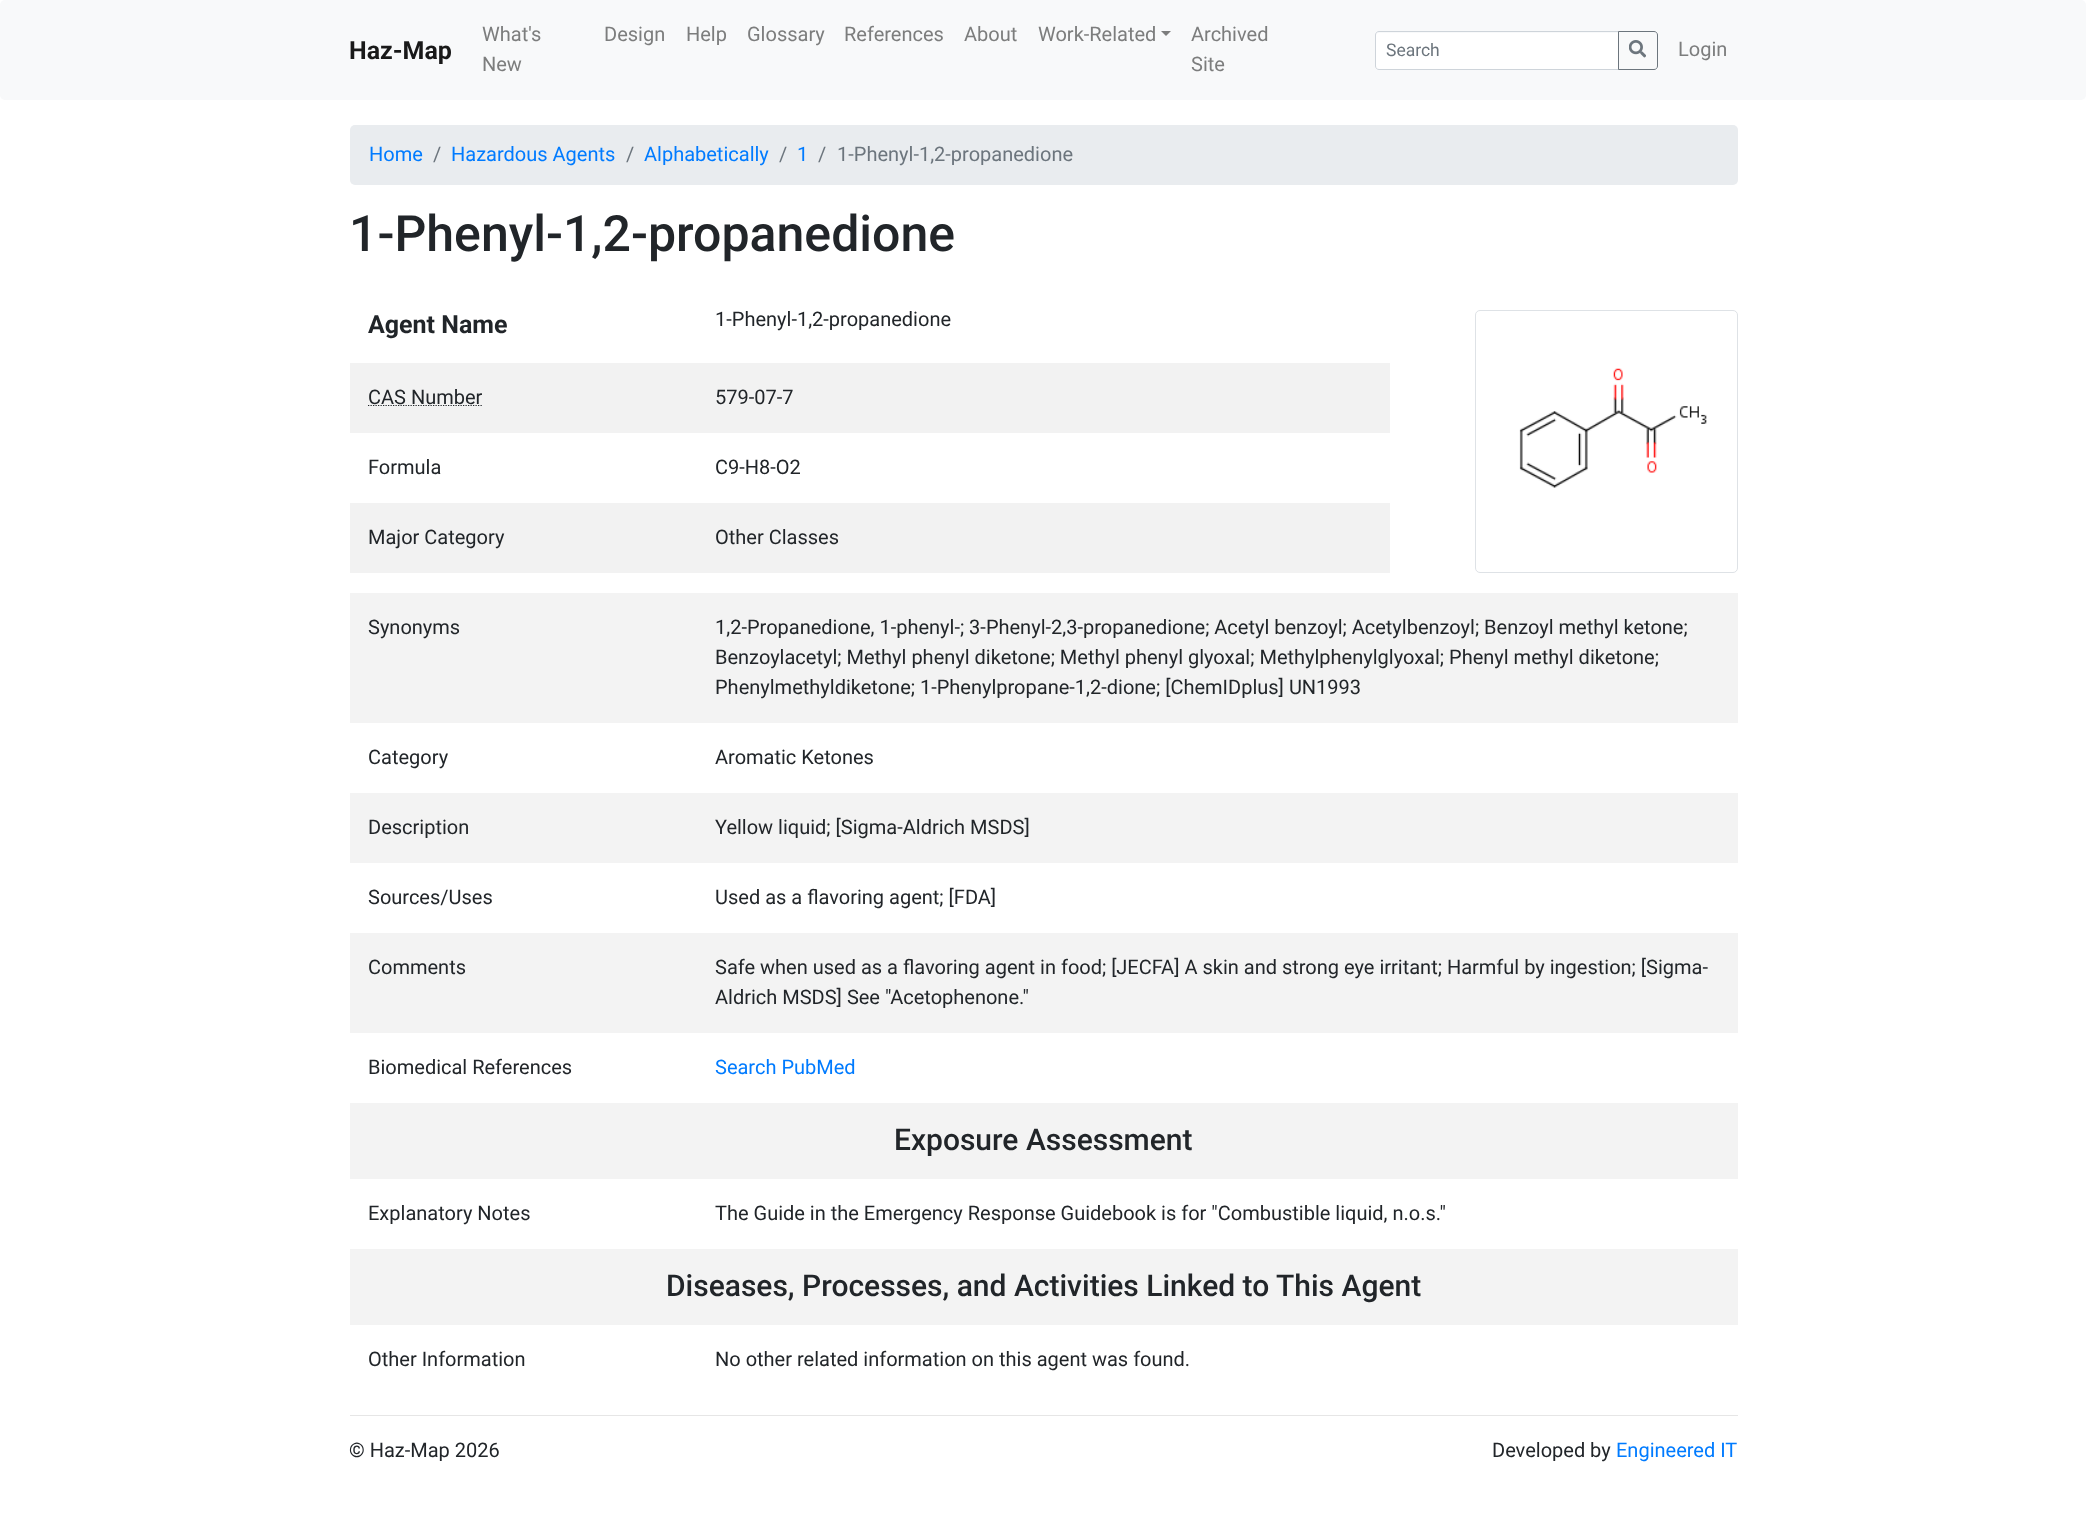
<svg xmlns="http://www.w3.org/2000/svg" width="2086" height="1516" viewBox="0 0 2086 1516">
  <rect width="100%" height="100%" fill="rgb(255,255,255)"/>
  <rect x="0" y="0" width="2086" height="100" rx="5" fill="rgb(248,249,250)"/>
  <text x="349" y="59" font-family="Roboto" font-size="25" font-weight="bold" fill="rgb(25,25,25)">Haz-Map</text>
  <g font-family="Roboto" font-size="20" fill="rgb(124,125,125)">
    <text>
      <tspan x="482" y="41">What's</tspan>
      <tspan x="482" y="71">New</tspan>
    </text>
    <text x="604" y="41">Design</text>
    <text x="686" y="41">Help</text>
    <text x="747" y="41">Glossary</text>
    <text x="844" y="41">References</text>
    <text x="964" y="41">About</text>
    <text x="1038" y="41">Work-Related</text>
  </g>
  <path d="M1161 31H1171L1166 36Z" fill="rgb(124,125,125)"/>
  <g font-family="Roboto" font-size="20" fill="rgb(124,125,125)">
    <text>
      <tspan x="1191" y="41">Archived</tspan>
      <tspan x="1191" y="71">Site</tspan>
    </text>
  </g>
  <path d="M1378.5 33H1618V69H1378.5C1377 69 1376 68 1376 66.5V35.5C1376 34 1377 33 1378.5 33Z" fill="rgb(255,255,255)"/>
  <path d="M1379 31.5H1618.5V69.5H1379C1377 69.5 1375.5 68 1375.5 66V35C1375.5 33 1377 31.5 1379 31.5Z" fill="none" stroke="rgb(206,212,218)"/>
  <text x="1386" y="56" font-family="Roboto" font-size="17.5" fill="rgb(108,117,125)">Search</text>
  <path d="M1618.5 31.5H1654C1656 31.5 1657.5 33 1657.5 35V66C1657.5 68 1656 69.5 1654 69.5H1618.5Z" fill="none" stroke="rgb(108,117,125)"/>
  <image x="1629" y="40" width="17" height="18" href="pic1.png"/>
  <text x="1678" y="56" font-family="Roboto" font-size="20" fill="rgb(124,125,125)">Login</text>
  <rect x="350" y="125" width="1388" height="60" rx="5" fill="rgb(233,236,239)"/>
  <text x="369" y="161" font-family="Roboto" font-size="20" fill="rgb(0,123,255)">Home</text>
  <text x="433" y="161" font-family="Roboto" font-size="20" fill="rgb(108,117,125)">/</text>
  <text x="451" y="161" font-family="Roboto" font-size="20" fill="rgb(0,123,255)">Hazardous Agents</text>
  <text x="626" y="161" font-family="Roboto" font-size="20" fill="rgb(108,117,125)">/</text>
  <text x="644" y="161" font-family="Roboto" font-size="20" fill="rgb(0,123,255)">Alphabetically</text>
  <text x="779" y="161" font-family="Roboto" font-size="20" fill="rgb(108,117,125)">/</text>
  <text x="797" y="161" font-family="Roboto" font-size="20" fill="rgb(0,123,255)">1</text>
  <g font-family="Roboto" font-size="20" fill="rgb(108,117,125)">
    <text x="818" y="161">/</text>
    <text x="837" y="161">1-Phenyl-1,2-propanedione</text>
  </g>
  <text x="349" y="251" font-family="Roboto" font-size="50" font-weight="500" fill="rgb(33,37,41)">1-Phenyl-1,2-propanedione</text>
  <text x="368" y="333" font-family="Roboto" font-size="25" font-weight="bold" fill="rgb(33,37,41)">Agent Name</text>
  <text x="715" y="326" font-family="Roboto" font-size="20" fill="rgb(33,37,41)">1-Phenyl-1,2-propanedione</text>
  <rect x="350" y="363" width="1040" height="70" fill="rgb(242,242,242)"/>
  <path d="M368 405.5H482.5" fill="none" stroke="rgb(33,37,41)" stroke-width="1.2" stroke-dasharray="1.25 1.25"/>
  <g font-family="Roboto" font-size="20" fill="rgb(33,37,41)">
    <text x="368" y="404">CAS Number</text>
    <text x="715" y="404">579-07-7</text>
    <text x="368" y="474">Formula</text>
    <text x="715" y="474">C9-H8-O2</text>
  </g>
  <rect x="350" y="503" width="1040" height="70" fill="rgb(242,242,242)"/>
  <g font-family="Roboto" font-size="20" fill="rgb(33,37,41)">
    <text x="368" y="544">Major Category</text>
    <text x="715" y="544">Other Classes</text>
  </g>
  <rect x="1475.5" y="310.5" width="262" height="262" rx="4.5" fill="none" stroke="rgb(222,226,230)"/>
  <image x="1519" y="368" width="188" height="120" href="pic2.png"/>
  <rect x="350" y="593" width="1388" height="130" fill="rgb(243,243,243)"/>
  <g font-family="Roboto" font-size="20" fill="rgb(33,37,41)">
    <text x="368" y="634">Synonyms</text>
    <text>
      <tspan x="715" y="634">1,2-Propanedione, 1-phenyl-; 3-Phenyl-2,3-propanedione; Acetyl benzoyl; Acetylbenzoyl; Benzoyl methyl ketone;</tspan>
      <tspan x="715" y="664">Benzoylacetyl; Methyl phenyl diketone; Methyl phenyl glyoxal; Methylphenylglyoxal; Phenyl methyl diketone;</tspan>
      <tspan x="715" y="694">Phenylmethyldiketone; 1-Phenylpropane-1,2-dione; [ChemIDplus] UN1993</tspan>
    </text>
    <text x="368" y="764">Category</text>
    <text x="715" y="764">Aromatic Ketones</text>
  </g>
  <rect x="350" y="793" width="1388" height="70" fill="rgb(243,243,243)"/>
  <g font-family="Roboto" font-size="20" fill="rgb(33,37,41)">
    <text x="368" y="834">Description</text>
    <text x="715" y="834">Yellow liquid; [Sigma-Aldrich MSDS]</text>
    <text x="368" y="904">Sources/Uses</text>
    <text x="715" y="904">Used as a flavoring agent; [FDA]</text>
  </g>
  <rect x="350" y="933" width="1388" height="100" fill="rgb(243,243,243)"/>
  <g font-family="Roboto" font-size="20" fill="rgb(33,37,41)">
    <text x="368" y="974">Comments</text>
    <text>
      <tspan x="715" y="974">Safe when used as a flavoring agent in food; [JECFA] A skin and strong eye irritant; Harmful by ingestion; [Sigma-</tspan>
      <tspan x="715" y="1004">Aldrich MSDS] See "Acetophenone."</tspan>
    </text>
    <text x="368" y="1074">Biomedical References</text>
  </g>
  <text x="715" y="1074" font-family="Roboto" font-size="20" fill="rgb(0,123,255)">Search PubMed</text>
  <rect x="350" y="1103" width="1388" height="76" fill="rgb(243,243,243)"/>
  <text x="894" y="1150" font-family="Roboto" font-size="30" font-weight="500" fill="rgb(33,37,41)">Exposure Assessment</text>
  <g font-family="Roboto" font-size="20" fill="rgb(33,37,41)">
    <text x="368" y="1220">Explanatory Notes</text>
    <text x="715" y="1220">The Guide in the Emergency Response Guidebook is for "Combustible liquid, n.o.s."</text>
  </g>
  <rect x="350" y="1249" width="1388" height="76" fill="rgb(243,243,243)"/>
  <text x="666" y="1296" font-family="Roboto" font-size="30" font-weight="500" fill="rgb(33,37,41)">Diseases, Processes, and Activities Linked to This Agent</text>
  <g font-family="Roboto" font-size="20" fill="rgb(33,37,41)">
    <text x="368" y="1366">Other Information</text>
    <text x="715" y="1366">No other related information on this agent was found.</text>
  </g>
  <rect x="350" y="1415" width="1388" height="1" fill="rgb(230,230,230)"/>
  <g font-family="Roboto" font-size="20" fill="rgb(33,37,41)">
    <text x="349" y="1457">© Haz-Map 2026</text>
    <text x="1492" y="1457">Developed by</text>
  </g>
  <text x="1616" y="1457" font-family="Roboto" font-size="20" fill="rgb(0,123,255)">Engineered IT</text>
</svg>
